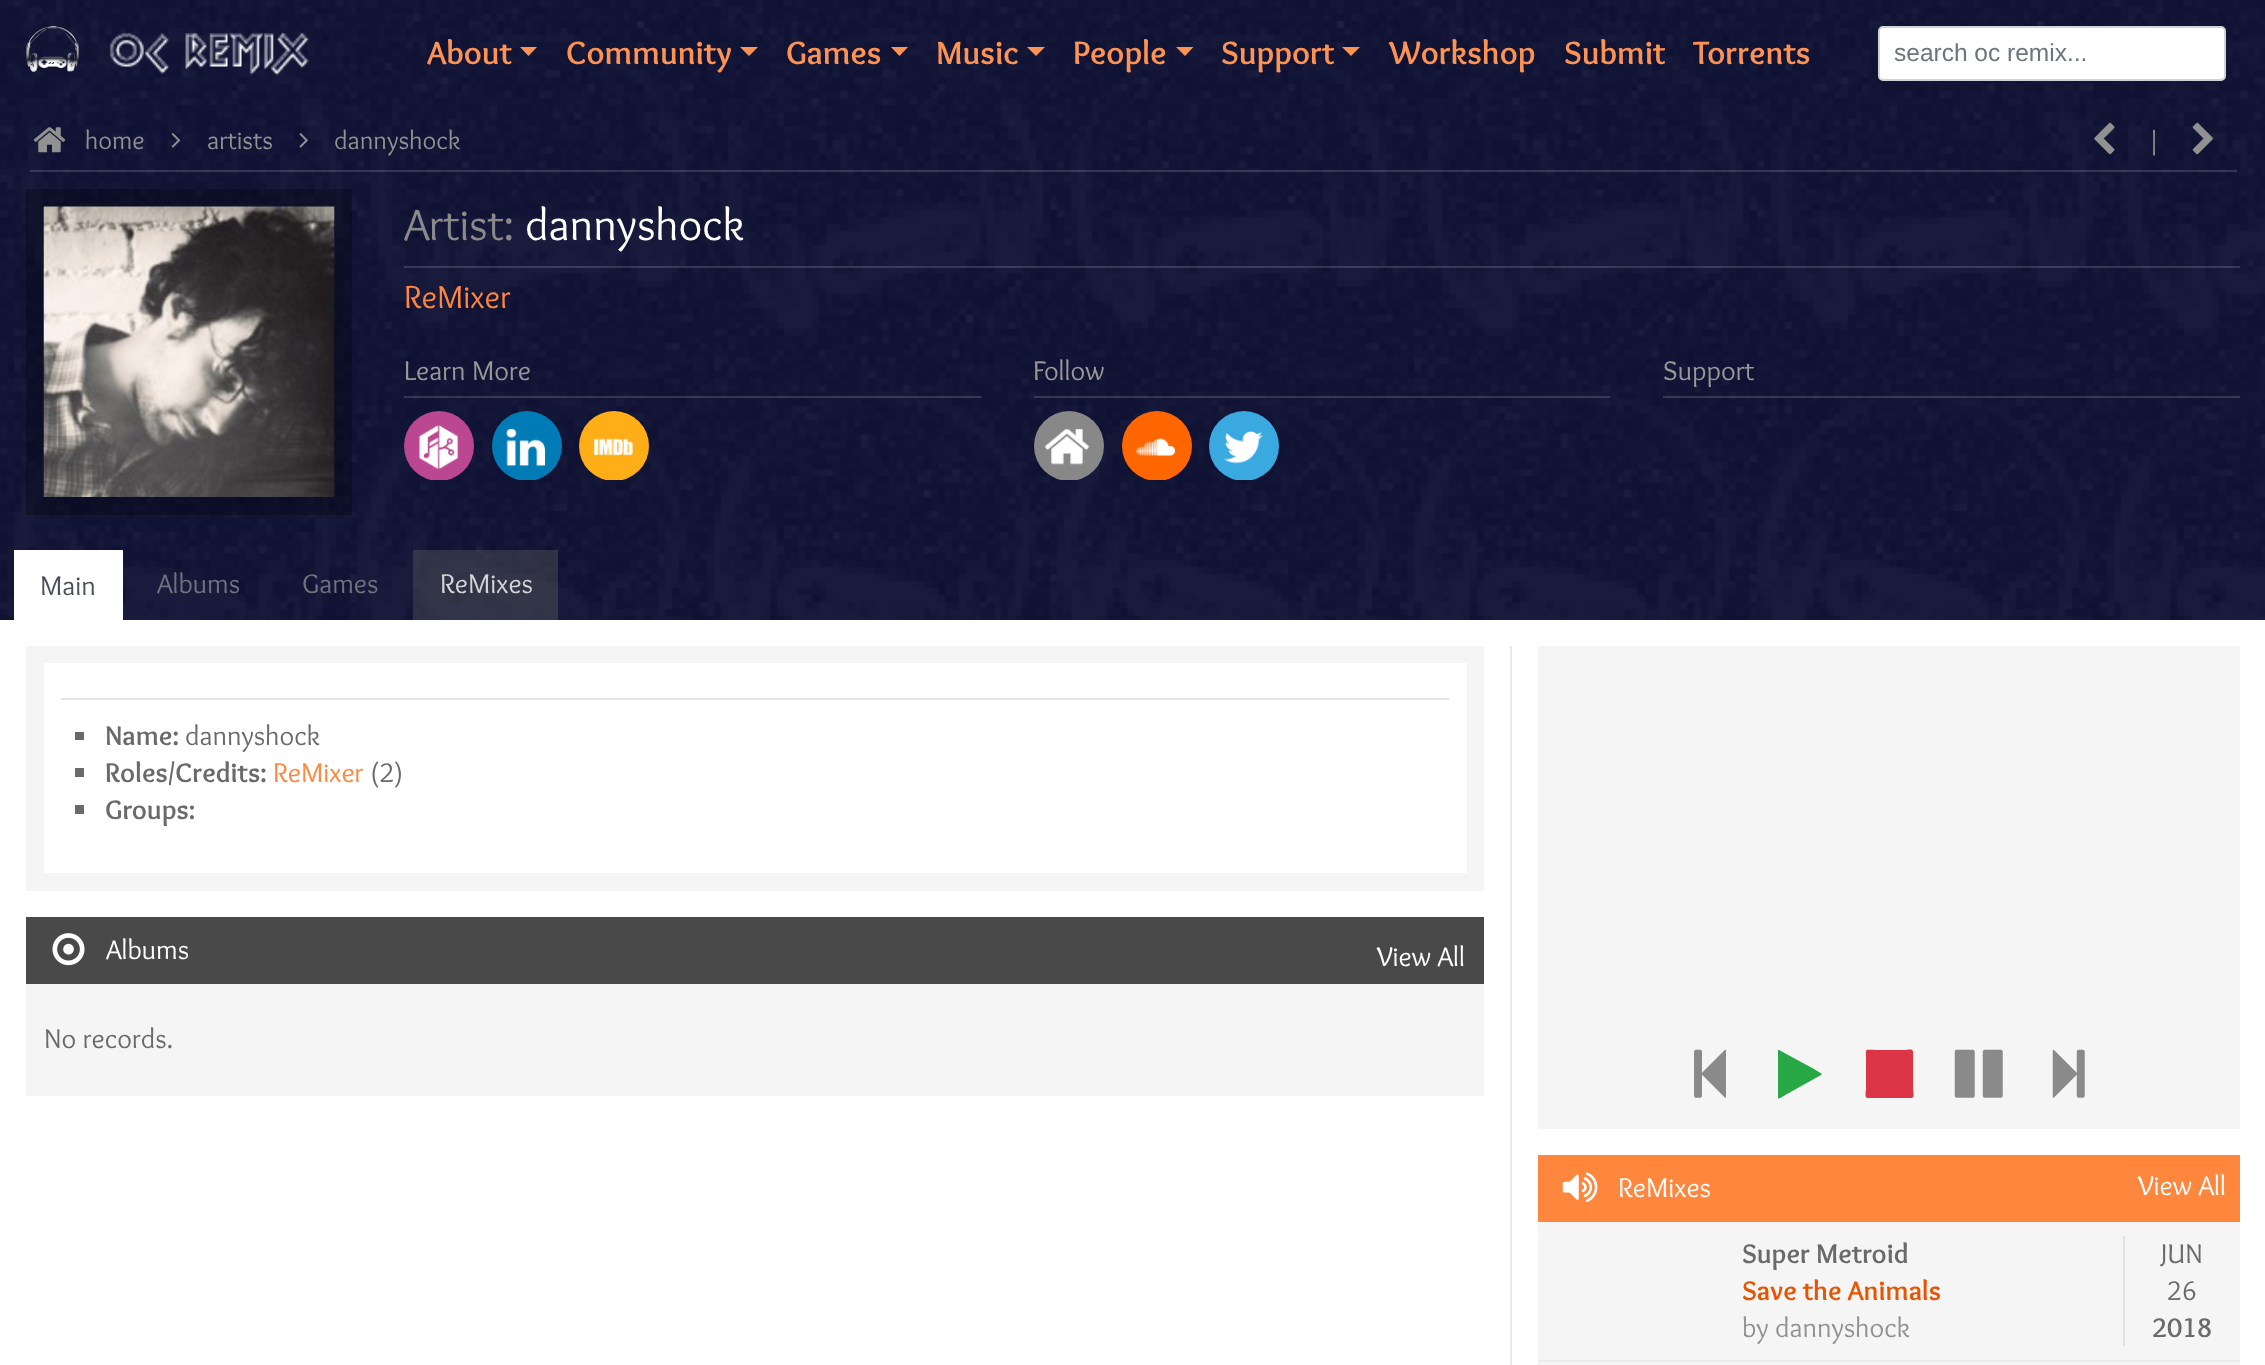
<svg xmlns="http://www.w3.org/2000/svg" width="2265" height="1365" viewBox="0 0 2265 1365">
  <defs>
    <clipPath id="clip1"><rect x="404" y="354" width="578" height="126"/></clipPath>
    <clipPath id="clip2"><rect x="1034" y="354" width="576" height="126"/></clipPath>
  </defs>
  <rect width="100%" height="100%" fill="rgb(255,255,255)"/>
  <image x="0" y="0" width="2265" height="620" href="pic1.png"/>
  <rect x="0" y="0" width="2265" height="102" fill="rgba(22,27,79,0.63)"/>
  <image x="26" y="26" width="53" height="46" href="pic2.png"/>
  <image x="109" y="32" width="200" height="44" href="pic3.png"/>
  <text x="427" y="64" font-family="Overlock" font-size="33.5" font-weight="bold" fill="rgb(253,147,83)">About</text>
  <path d="M520 47H537L528.5 56Z" fill="rgb(253,147,83)"/>
  <text x="566" y="64" font-family="Overlock" font-size="33.5" font-weight="bold" fill="rgb(253,147,83)">Community</text>
  <path d="M740 47H758L749 56Z" fill="rgb(253,147,83)"/>
  <text x="786" y="64" font-family="Overlock" font-size="33.5" font-weight="bold" fill="rgb(253,147,83)">Games</text>
  <path d="M891 47H908L899.5 56Z" fill="rgb(253,147,83)"/>
  <text x="936" y="64" font-family="Overlock" font-size="33.5" font-weight="bold" fill="rgb(253,147,83)">Music</text>
  <path d="M1027 47H1045L1036 56Z" fill="rgb(253,147,83)"/>
  <text x="1073" y="64" font-family="Overlock" font-size="33.5" font-weight="bold" fill="rgb(253,147,83)">People</text>
  <path d="M1176 47H1193.5L1185 56Z" fill="rgb(253,147,83)"/>
  <text x="1221" y="64" font-family="Overlock" font-size="33.5" font-weight="bold" fill="rgb(253,147,83)">Support</text>
  <path d="M1342 47H1360L1351 56Z" fill="rgb(253,147,83)"/>
  <g font-family="Overlock" font-size="33.5" font-weight="bold" fill="rgb(253,147,83)">
    <text x="1389" y="64">Workshop</text>
    <text x="1564" y="64">Submit</text>
    <text x="1693" y="64">Torrents</text>
  </g>
  <rect x="1879" y="27" width="346" height="53" rx="4" fill="rgb(255,255,255)" stroke="rgb(206,212,218)" stroke-width="2"/>
  <text x="1894" y="61" font-family="Liberation Sans" font-size="24.5" fill="rgb(108,117,125)">search oc remix...</text>
  <rect x="0" y="102" width="2265" height="518" fill="rgba(22,27,79,0.63)"/>
  <rect x="30" y="170" width="2207" height="2" fill="rgba(255,255,255,0.15)"/>
  <image x="33" y="127" width="33" height="26" href="pic4.png"/>
  <text x="85" y="149" font-family="Overlock" font-size="26.25" fill="rgb(145,145,145)">home</text>
  <image x="171" y="133" width="10" height="15" href="pic5.png"/>
  <text x="207" y="149" font-family="Overlock" font-size="26.25" fill="rgb(145,145,145)">artists</text>
  <image x="299" y="133" width="9" height="15" href="pic6.png"/>
  <text x="334" y="149" font-family="Overlock" font-size="26.25" fill="rgb(145,145,145)">dannyshock</text>
  <image x="2094" y="122" width="21" height="33" href="pic7.png"/>
  <text x="2147" y="149" font-family="Overlock" font-size="26.25" fill="rgb(145,145,145)">|</text>
  <image x="2192" y="122" width="21" height="33" href="pic8.png"/>
  <rect x="26" y="189" width="326" height="326" fill="rgba(0,0,0,0.25)"/>
  <image x="43" y="206" width="292" height="291" href="pic9.png"/>
  <rect x="404" y="266" width="1836" height="2" fill="rgba(255,255,255,0.15)"/>
  <text x="404" y="240" font-family="Overlock" font-size="45.5" fill="rgb(138,138,138)">Artist:</text>
  <text x="525" y="240" font-family="Overlock" font-size="45.5" fill="rgb(255,255,255)">dannyshock</text>
  <text x="404" y="308" font-family="Overlock" font-size="33" fill="rgb(255,134,61)">ReMixer</text>
  <rect x="404" y="396" width="578" height="2" fill="rgba(255,255,255,0.15)"/>
  <text x="404" y="380" font-family="Overlock" font-size="28" fill="rgb(153,153,153)">Learn More</text>
  <g clip-path="url(#clip1)">
    <circle cx="439" cy="446" r="35" fill="rgb(186,71,143)"/>
  </g>
  <image x="419" y="425" width="40" height="45" href="pic10.png"/>
  <g clip-path="url(#clip1)">
    <circle cx="527" cy="446" r="35" fill="rgb(0,123,182)"/>
  </g>
  <image x="506" y="428" width="40" height="39" href="pic11.png"/>
  <g clip-path="url(#clip1)">
    <circle cx="614" cy="446" r="35" fill="rgb(255,174,23)"/>
  </g>
  <image x="594" y="438" width="39" height="18" href="pic12.png"/>
  <rect x="1034" y="396" width="576" height="2" fill="rgba(255,255,255,0.15)"/>
  <text x="1033" y="380" font-family="Overlock" font-size="28" fill="rgb(153,153,153)">Follow</text>
  <g clip-path="url(#clip2)">
    <circle cx="1069" cy="446" r="35" fill="rgb(136,136,136)"/>
  </g>
  <image x="1044" y="429" width="46" height="36" href="pic13.png"/>
  <g clip-path="url(#clip2)">
    <circle cx="1157" cy="446" r="35" fill="rgb(255,102,0)"/>
  </g>
  <image x="1136" y="438" width="40" height="18" href="pic14.png"/>
  <g clip-path="url(#clip2)">
    <circle cx="1244" cy="446" r="35" fill="rgb(57,169,224)"/>
  </g>
  <image x="1224" y="430" width="39" height="34" href="pic15.png"/>
  <rect x="1663" y="396" width="577" height="2" fill="rgba(255,255,255,0.15)"/>
  <text x="1663" y="380" font-family="Overlock" font-size="28" fill="rgb(153,153,153)">Support</text>
  <rect x="14" y="550" width="109" height="70" fill="rgb(255,255,255)"/>
  <text x="40" y="595" font-family="Overlock" font-size="28" fill="rgb(73,80,87)">Main</text>
  <g font-family="Overlock" font-size="28" fill="rgb(108,117,125)">
    <text x="157" y="593">Albums</text>
    <text x="302" y="593">Games</text>
  </g>
  <rect x="413" y="550" width="145" height="70" fill="rgba(92,92,92,0.4)"/>
  <text x="440" y="593" font-family="Overlock" font-size="28" fill="rgb(213,213,213)">ReMixes</text>
  <rect x="26" y="646" width="1458" height="245" fill="rgb(245,245,245)"/>
  <rect x="44" y="663" width="1423" height="210" fill="rgb(255,255,255)"/>
  <rect x="61" y="698" width="1388" height="2" fill="rgb(230,230,230)"/>
  <rect x="75" y="732" width="9" height="8" fill="rgb(106,106,106)"/>
  <text x="105" y="745" font-family="Overlock" font-size="28" font-weight="bold" fill="rgb(106,106,106)">Name:</text>
  <text x="185" y="745" font-family="Overlock" font-size="28" fill="rgb(106,106,106)">dannyshock</text>
  <rect x="75" y="768" width="9" height="9" fill="rgb(106,106,106)"/>
  <text x="105" y="782" font-family="Overlock" font-size="28" font-weight="bold" fill="rgb(106,106,106)">Roles/Credits:</text>
  <text x="273" y="782" font-family="Overlock" font-size="28" fill="rgb(255,134,61)">ReMixer</text>
  <text x="370" y="782" font-family="Overlock" font-size="28" fill="rgb(106,106,106)">(2)</text>
  <rect x="75" y="805" width="9" height="9" fill="rgb(106,106,106)"/>
  <text x="105" y="819" font-family="Overlock" font-size="28" font-weight="bold" fill="rgb(106,106,106)">Groups:</text>
  <rect x="26" y="917" width="1458" height="67" fill="rgb(73,73,73)"/>
  <image x="52" y="933" width="33" height="33" href="pic16.png"/>
  <g font-family="Overlock" font-size="28" fill="rgb(255,255,255)">
    <text x="106" y="959">Albums</text>
    <text x="1377" y="966">View All</text>
  </g>
  <rect x="26" y="984" width="1458" height="112" fill="rgb(245,245,245)"/>
  <text x="44" y="1048" font-family="Overlock" font-size="28" fill="rgb(106,106,106)">No records.</text>
  <rect x="1510" y="646" width="2" height="719" fill="rgb(234,234,234)"/>
  <rect x="1538" y="646" width="702" height="483" fill="rgb(245,245,245)"/>
  <image x="1694" y="1049" width="32" height="49" href="pic17.png"/>
  <path d="M1821 1075L1787 1094C1786 1094 1779 1100 1778 1098V1050H1779L1814 1069L1822 1074Z" fill="rgb(40,167,69)"/>
  <path d="M1913 1052V1088C1913 1091 1915 1097 1912 1098H1868C1864 1098 1866 1092 1866 1088V1059C1866 1048 1864 1050 1875 1050H1904C1908 1050 1913 1048 1913 1052Z" fill="rgb(220,53,69)"/>
  <image x="1954" y="1049" width="49" height="49" href="pic18.png"/>
  <image x="2052" y="1049" width="33" height="49" href="pic19.png"/>
  <rect x="1538" y="1155" width="702" height="67" fill="rgb(255,134,61)"/>
  <image x="1562" y="1172" width="36" height="30" href="pic20.png"/>
  <g font-family="Overlock" font-size="28" fill="rgb(255,255,255)">
    <text x="1618" y="1197">ReMixes</text>
    <text x="2138" y="1195">View All</text>
  </g>
  <rect x="1538" y="1222" width="702" height="138" fill="rgb(245,245,245)"/>
  <rect x="1538" y="1360" width="702" height="2" fill="rgb(234,234,234)"/>
  <text x="1742" y="1263" font-family="Overlock" font-size="28" font-weight="bold" fill="rgb(106,106,106)">Super Metroid</text>
  <text x="1742" y="1300" font-family="Overlock" font-size="28" font-weight="bold" fill="rgb(230,85,2)">Save the Animals</text>
  <text x="1742" y="1337" font-family="Overlock" font-size="28" fill="rgb(145,145,145)">by dannyshock</text>
  <rect x="2123" y="1236" width="2" height="110" fill="rgb(222,226,230)"/>
  <g font-family="Overlock" font-size="28" fill="rgb(106,106,106)">
    <text x="2161" y="1263">JUN</text>
    <text x="2167" y="1300">26</text>
  </g>
  <text x="2152" y="1337" font-family="Overlock" font-size="28" font-weight="bold" fill="rgb(106,106,106)">2018</text>
  <rect x="1538" y="1362" width="702" height="3" fill="rgb(245,245,245)"/>
</svg>
